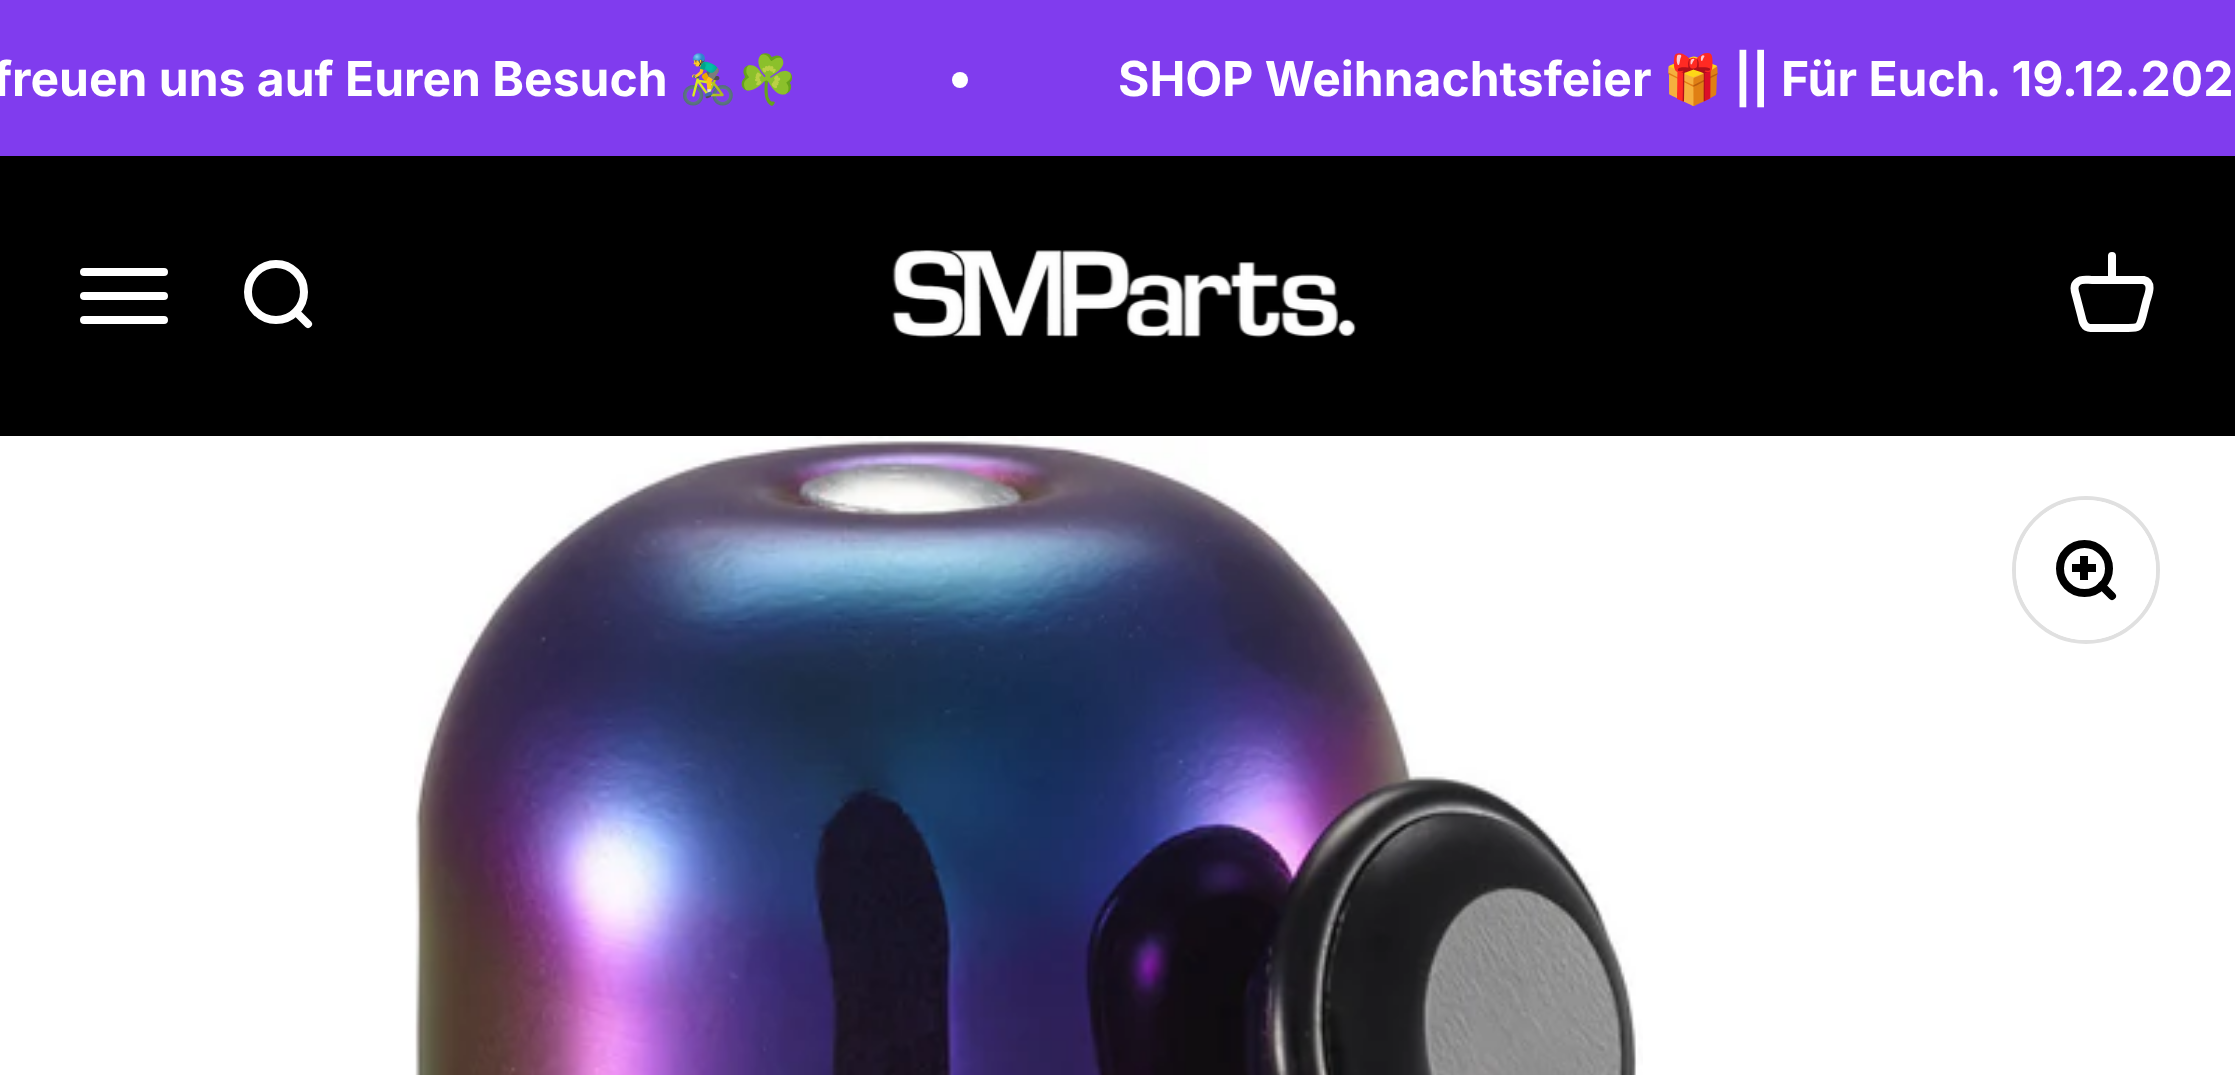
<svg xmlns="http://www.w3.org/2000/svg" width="2235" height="1075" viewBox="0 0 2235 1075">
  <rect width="100%" height="100%" fill="rgb(255,255,255)"/>
  <rect x="0" y="0" width="2235" height="156" fill="rgb(128,60,238)"/>
  <text x="-7" y="96" font-family="Inter" font-size="48" font-weight="bold" fill="rgb(255,255,255)">freuen uns auf Euren Besuch</text>
  <text x="678" y="96" font-family="Noto Color Emoji" font-size="48" font-weight="bold" fill="rgb(255,255,255)">🚴‍♂️☘️</text>
  <circle cx="960" cy="80" r="8" fill="rgb(255,255,255)"/>
  <text x="1118" y="96" font-family="Inter" font-size="48" font-weight="bold" fill="rgb(255,255,255)">SHOP Weihnachtsfeier</text>
  <text x="1663" y="96" font-family="Noto Color Emoji" font-size="48" font-weight="bold" fill="rgb(255,255,255)">🎁</text>
  <text x="1734" y="96" font-family="Inter" font-size="48" font-weight="bold" fill="rgb(255,255,255)">|| Für Euch. 19.12.202</text>
  <rect x="0" y="156" width="2235" height="280" fill="rgb(0,0,0)"/>
  <path d="M84 272H164M84 296H164M84 320H164" fill="none" stroke="rgb(255,255,255)" stroke-width="8" stroke-linecap="round"/>
  <circle cx="276" cy="292" r="28" fill="none" stroke="rgb(255,255,255)" stroke-width="8"/>
  <path d="M296 312L308 324" fill="none" stroke="rgb(255,255,255)" stroke-width="8" stroke-linecap="round" stroke-linejoin="round"/>
  <image x="892" y="250" width="464" height="88" href="pic1.png"/>
  <path d="M2112 280H2092C2087.5 280 2081 278.5 2077.5 282C2073 285.5 2074.5 290.5 2076 295.5L2081.5 316.5C2082.5 322 2084 328 2090.5 328H2126.5C2138.5 328 2139.5 328.5 2142.5 316.5L2146.5 300.5C2148.5 294.5 2153.5 282.5 2143.5 280ZM2112 280V256" fill="none" stroke="rgb(255,255,255)" stroke-width="8" stroke-linecap="round" stroke-linejoin="round"/>
  <image x="414" y="436" width="1229" height="639" href="pic2.png"/>
  <circle cx="2086" cy="570" r="72" fill="none" stroke="rgb(224,224,224)" stroke-width="4"/>
  <circle cx="2086" cy="570" r="70" fill="rgb(255,255,255)"/>
  <circle cx="2084.5" cy="568.5" r="24.5" fill="none" stroke="rgb(0,0,0)" stroke-width="8"/>
  <path d="M2101.5 585.5L2112 596" fill="none" stroke="rgb(0,0,0)" stroke-width="8" stroke-linecap="round" stroke-linejoin="round"/>
  <path d="M2084 556V580M2072 568H2096" fill="none" stroke="rgb(0,0,0)" stroke-width="8"/>
</svg>
